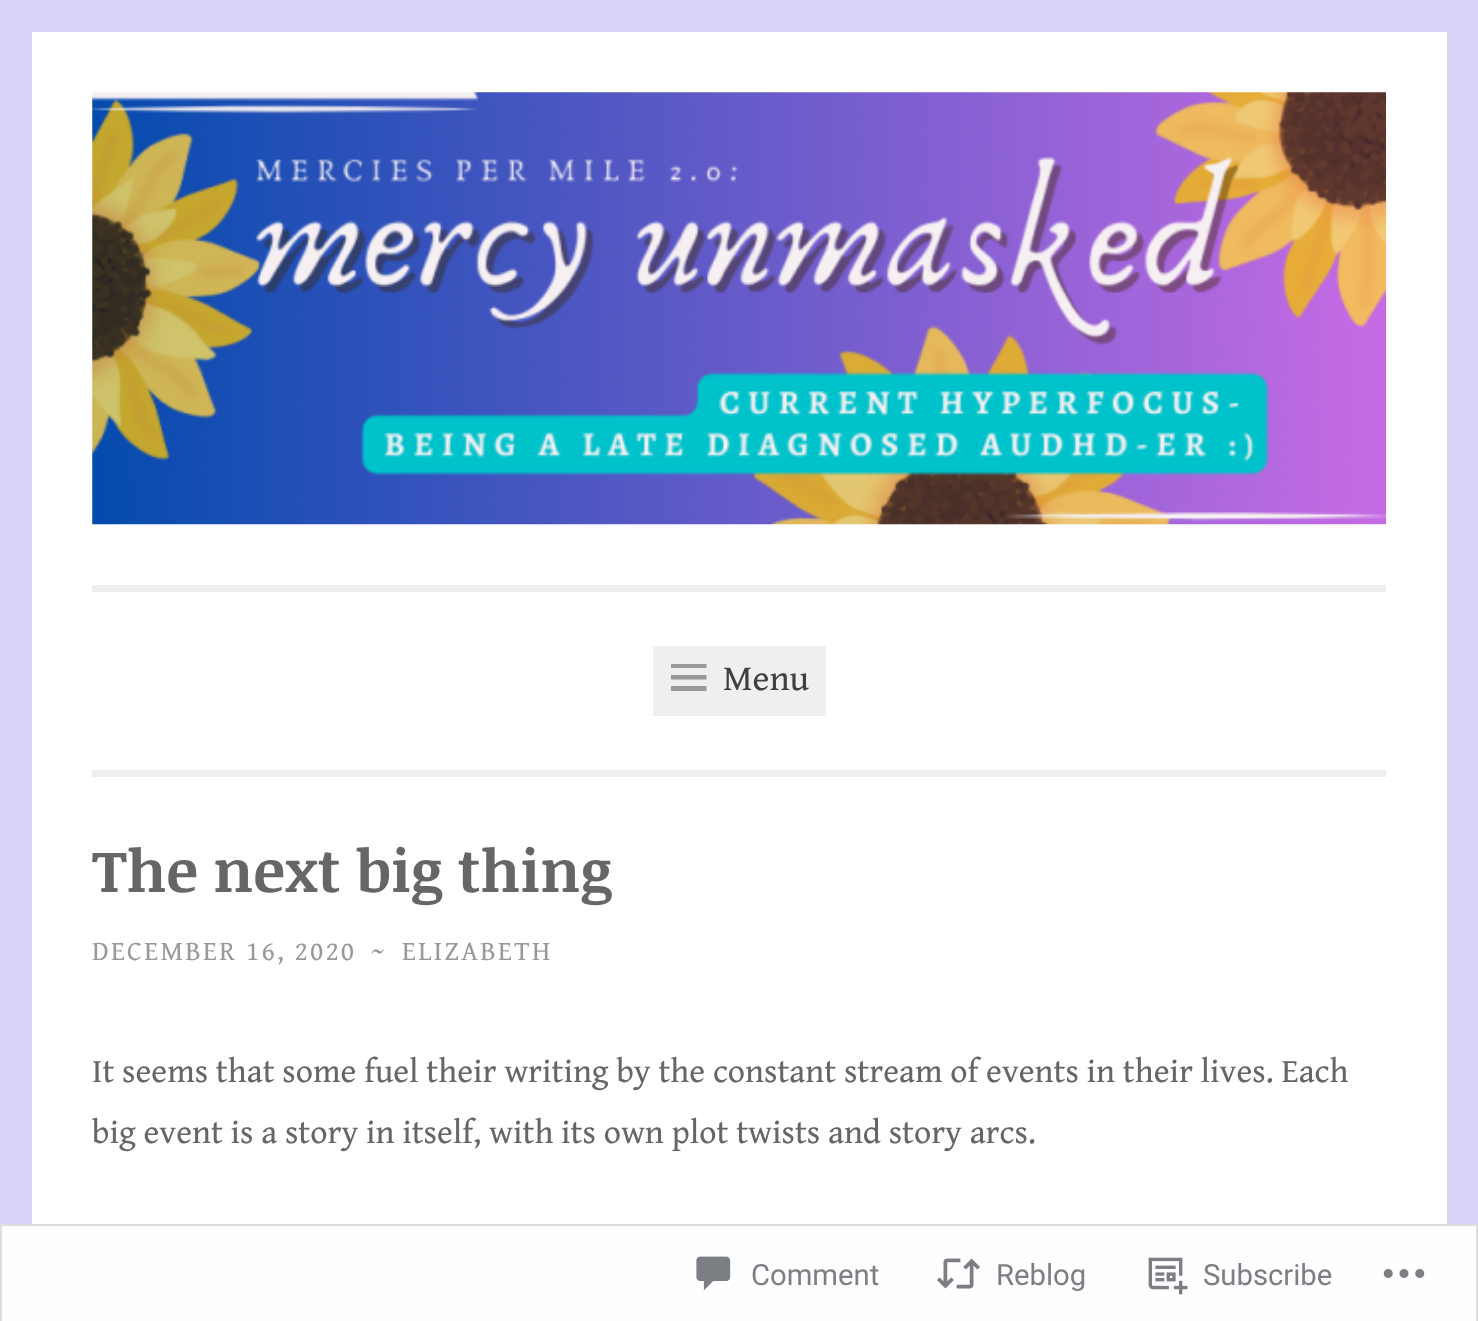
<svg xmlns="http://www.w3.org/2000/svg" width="1478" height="1321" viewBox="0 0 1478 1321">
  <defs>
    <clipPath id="clip1"><rect x="671" y="659" width="36" height="36"/></clipPath>
  </defs>
  <rect width="100%" height="100%" fill="rgb(219,211,247)"/>
  <rect x="32" y="32" width="1415" height="1192" fill="rgb(255,255,255)"/>
  <rect x="92" y="770" width="1294" height="7" fill="rgb(238,238,238)"/>
  <image x="92" y="92" width="1294" height="433" href="pic1.png"/>
  <rect x="92" y="585" width="1294" height="7" fill="rgb(238,238,238)"/>
  <rect x="653" y="646" width="173" height="70" fill="rgb(239,239,239)"/>
  <g clip-path="url(#clip1)">
    <path d="M670.5 691H706.5V686H670.5ZM670.5 664V668H706.5V664ZM670.5 679.5H706.5V675H670.5Z" fill="rgb(153,153,153)"/>
  </g>
  <text x="723" y="690" font-family="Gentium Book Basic" font-size="36" fill="rgb(64,64,64)">Menu</text>
  <text x="92" y="892" font-family="Noticia Text" font-size="59" font-weight="bold" fill="rgb(102,102,102)">The next big thing</text>
  <g font-family="Gentium Book Basic" font-size="27.5" letter-spacing="2.25" fill="rgb(153,153,153)">
    <text x="92" y="960">DECEMBER 16, 2020</text>
    <text x="371" y="960">~</text>
    <text x="402" y="960">ELIZABETH</text>
  </g>
  <g font-family="Gentium Book Basic" font-size="33.75" fill="rgb(102,102,102)">
    <text>
      <tspan x="92" y="1082">It seems that some fuel their writing by the constant stream of events in their lives. Each</tspan>
      <tspan x="92" y="1143">big event is a story in itself, with its own plot twists and story arcs.</tspan>
    </text>
  </g>
  <rect x="1" y="1225" width="1476" height="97" fill="rgb(254,254,255)" stroke="rgb(221,221,223)" stroke-width="2"/>
  <image x="696" y="1256" width="35" height="35" href="pic2.png"/>
  <text x="751" y="1285" font-family="Roboto" font-size="29.25" fill="rgb(123,127,132)">Comment</text>
  <image x="937" y="1258" width="43" height="31" href="pic3.png"/>
  <text x="996" y="1285" font-family="Roboto" font-size="29.25" fill="rgb(123,127,132)">Reblog</text>
  <image x="1148" y="1257" width="40" height="38" href="pic4.png"/>
  <text x="1203" y="1285" font-family="Roboto" font-size="29.25" fill="rgb(123,127,132)">Subscribe</text>
  <image x="1383" y="1269" width="42" height="9" href="pic5.png"/>
</svg>
